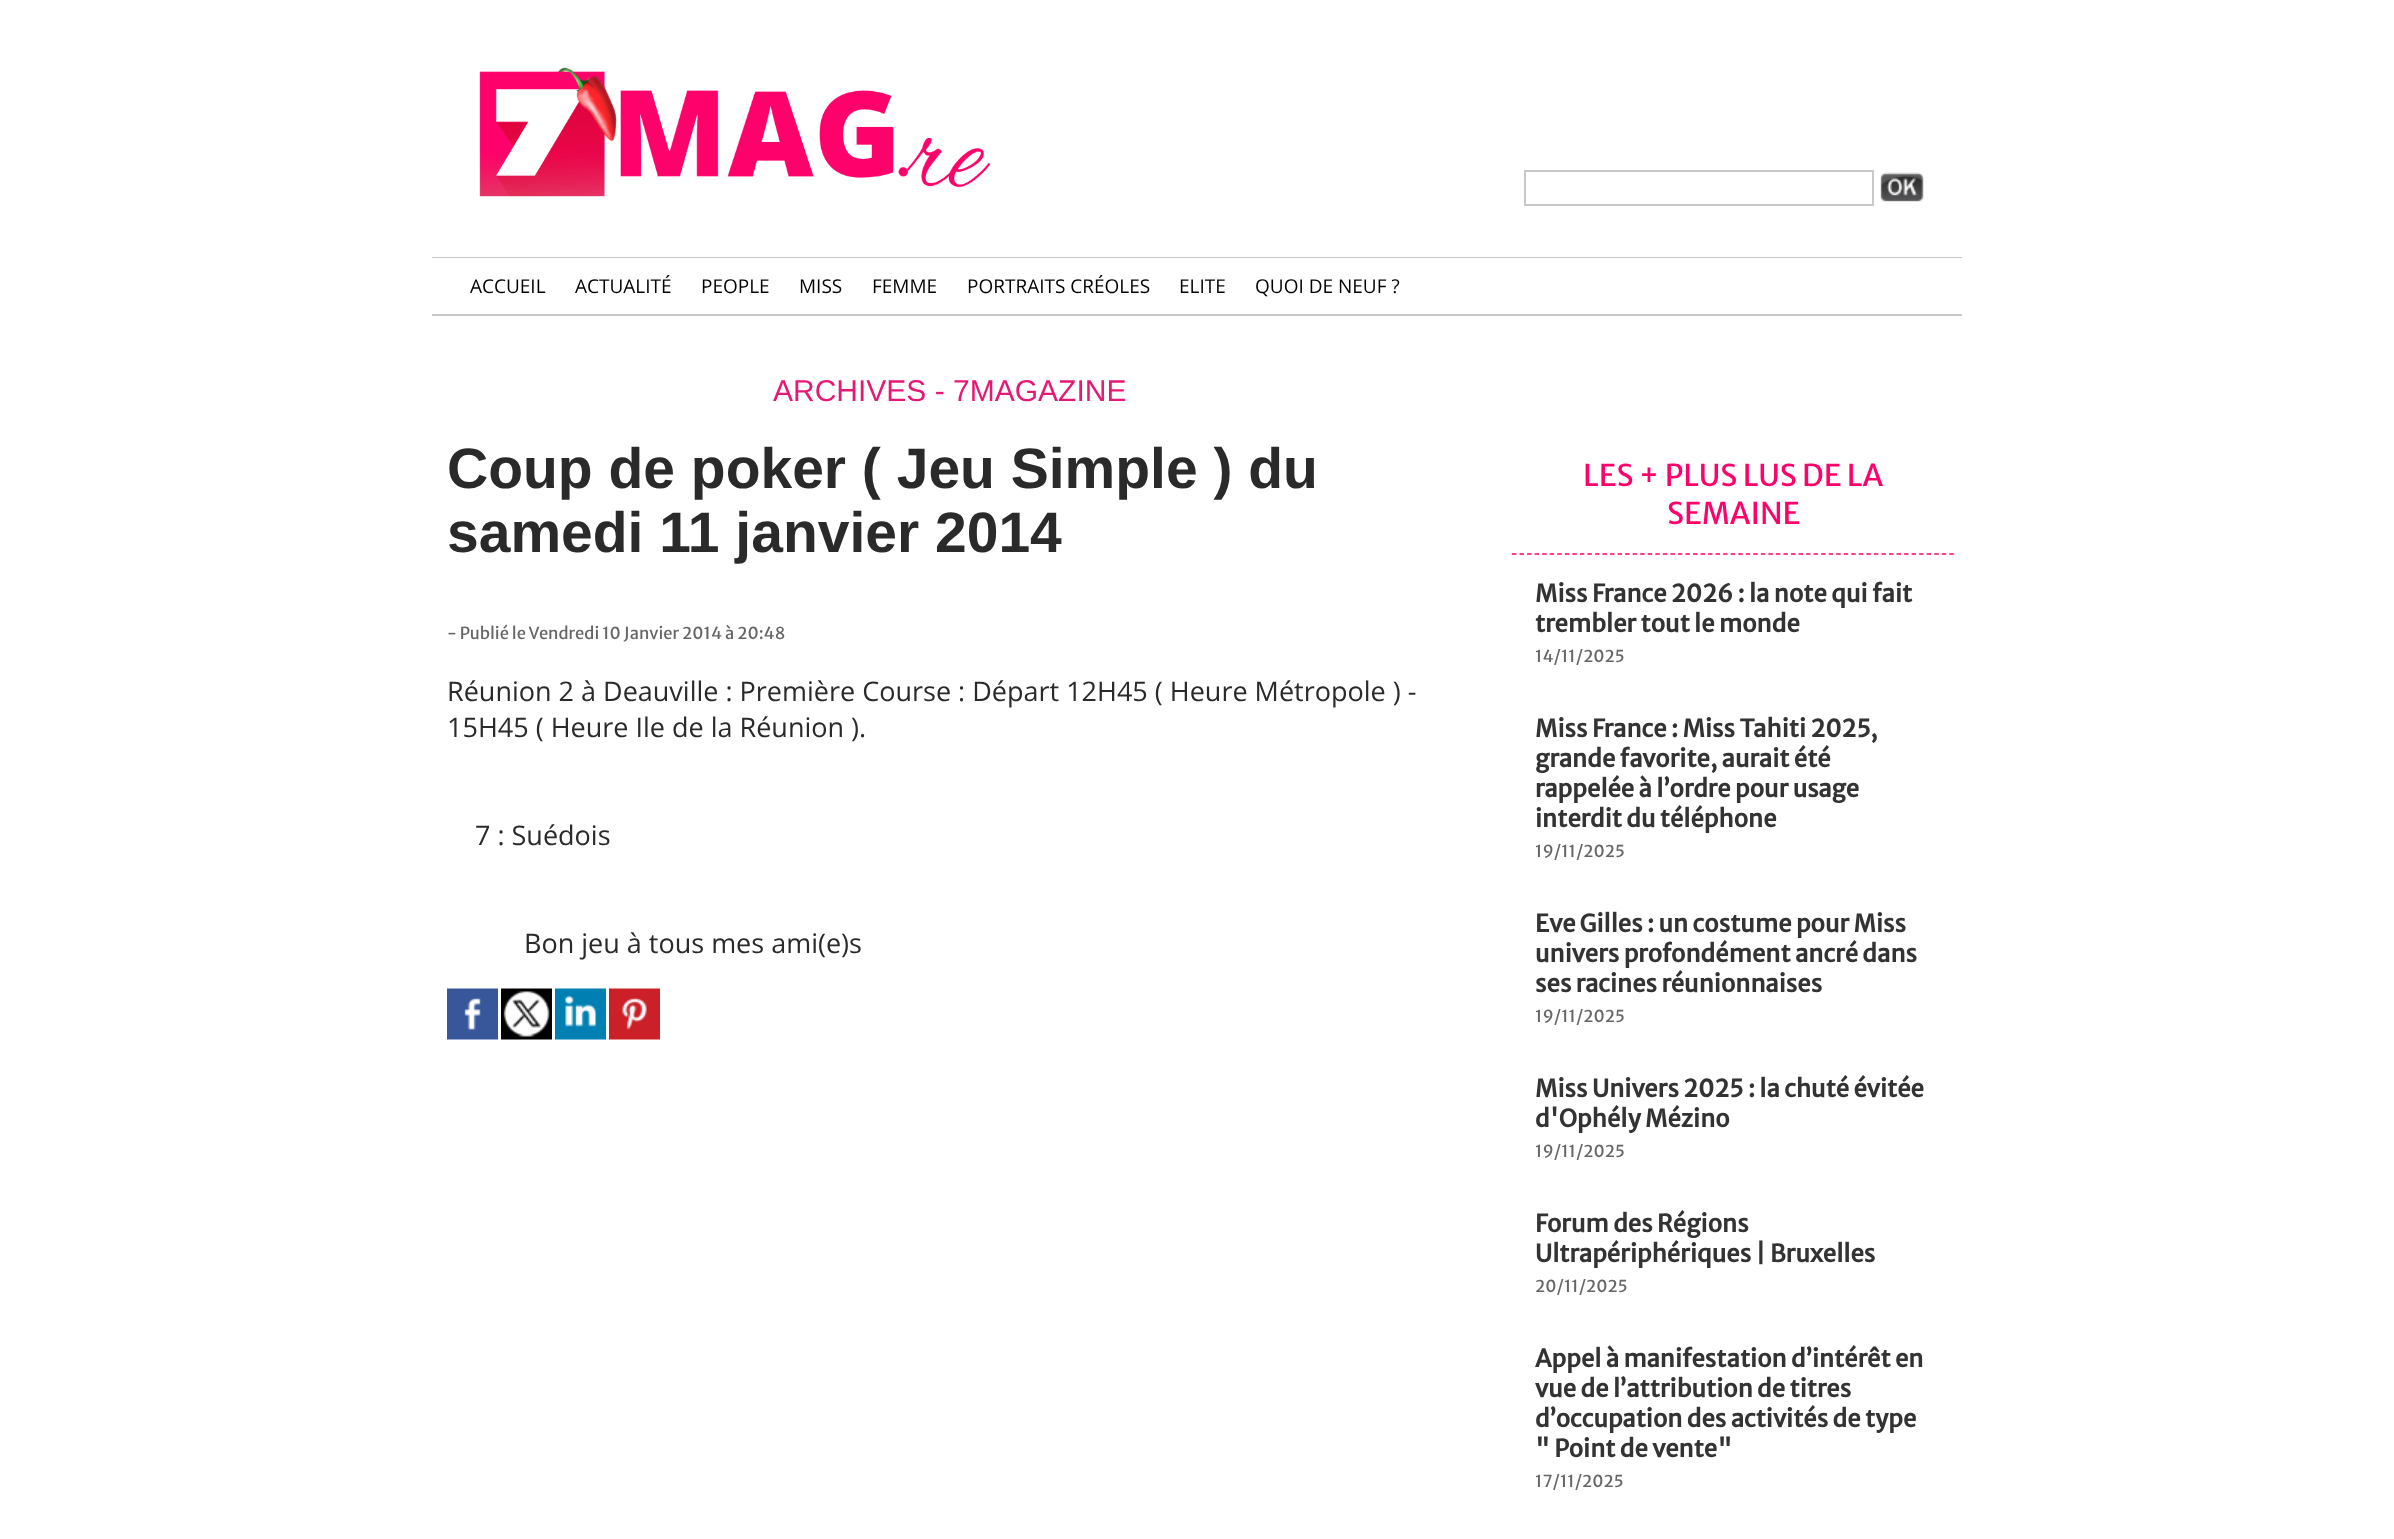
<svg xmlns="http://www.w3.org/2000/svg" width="2394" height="1539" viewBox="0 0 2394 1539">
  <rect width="100%" height="100%" fill="rgb(255,255,255)"/>
  <image x="479" y="67" width="512" height="130" href="pic1.png"/>
  <rect x="1525" y="171" width="348" height="34" fill="none" stroke="rgb(201,201,201)" stroke-width="2"/>
  <image x="1880" y="172" width="44" height="30" href="pic2.png"/>
  <rect x="432" y="257" width="1530" height="1" fill="rgb(201,201,201)"/>
  <rect x="432" y="314" width="1530" height="2" fill="rgb(201,201,201)"/>
  <g font-family="Open Sans" font-size="19" fill="rgb(0,0,0)">
    <text x="470" y="293">ACCUEIL</text>
    <text x="575" y="293">ACTUALITÉ</text>
    <text x="701" y="293">PEOPLE</text>
    <text x="799" y="293">MISS</text>
    <text x="872" y="293">FEMME</text>
    <text x="967" y="293">PORTRAITS CRÉOLES</text>
    <text x="1179" y="293">ELITE</text>
    <text x="1255" y="293">QUOI DE NEUF ?</text>
  </g>
  <text x="773" y="401" font-family="Liberation Sans" font-size="30" fill="rgb(230,24,117)">ARCHIVES - 7MAGAZINE</text>
  <g font-family="Liberation Sans" font-size="57" font-weight="bold" fill="rgb(42,42,42)">
    <text>
      <tspan x="447" y="488">Coup de poker ( Jeu Simple ) du</tspan>
      <tspan x="447" y="552">samedi 11 janvier 2014</tspan>
    </text>
  </g>
  <text x="447" y="639" font-family="Merriweather Sans" font-size="16.5" fill="rgb(102,102,102)">- Publié le Vendredi 10 Janvier 2014 à 20:48</text>
  <g font-family="Open Sans" font-size="27" fill="rgb(42,42,42)">
    <text>
      <tspan x="447" y="701">Réunion 2 à Deauville : Première Course : Départ 12H45 ( Heure Métropole ) -</tspan>
      <tspan x="447" y="737">15H45 ( Heure Ile de la Réunion ).</tspan>
    </text>
    <text x="475" y="845">7 : Suédois</text>
    <text x="524" y="953">Bon jeu à tous mes ami(e)s</text>
  </g>
  <image x="447" y="988" width="51" height="52" href="pic3.png"/>
  <image x="501" y="988" width="51" height="52" href="pic4.png"/>
  <image x="555" y="988" width="51" height="52" href="pic5.png"/>
  <image x="609" y="988" width="51" height="52" href="pic6.png"/>
  <path d="M1512 554H1954.5" fill="none" stroke="rgb(254,1,106)" stroke-width="1.5" stroke-dasharray="4.5 3.04"/>
  <g font-family="Merriweather Sans" font-size="30" fill="rgb(254,1,106)">
    <text x="1583" y="486">LES + PLUS LUS DE LA</text>
    <text x="1667" y="524">SEMAINE</text>
  </g>
  <g font-family="Merriweather Sans" font-size="24" font-weight="bold" fill="rgb(51,51,51)">
    <text>
      <tspan x="1535" y="602">Miss France 2026 : la note qui fait</tspan>
      <tspan x="1535" y="632">trembler tout le monde</tspan>
    </text>
  </g>
  <text x="1535" y="662" font-family="Merriweather Sans" font-size="16.5" fill="rgb(102,102,102)">14/11/2025</text>
  <g font-family="Merriweather Sans" font-size="24" font-weight="bold" fill="rgb(51,51,51)">
    <text>
      <tspan x="1535" y="737">Miss France : Miss Tahiti 2025,</tspan>
      <tspan x="1535" y="767">grande favorite, aurait été</tspan>
      <tspan x="1535" y="797">rappelée à l’ordre pour usage</tspan>
      <tspan x="1535" y="827">interdit du téléphone</tspan>
    </text>
  </g>
  <text x="1535" y="857" font-family="Merriweather Sans" font-size="16.5" fill="rgb(102,102,102)">19/11/2025</text>
  <g font-family="Merriweather Sans" font-size="24" font-weight="bold" fill="rgb(51,51,51)">
    <text>
      <tspan x="1535" y="932">Eve Gilles : un costume pour Miss</tspan>
      <tspan x="1535" y="962">univers profondément ancré dans</tspan>
      <tspan x="1535" y="992">ses racines réunionnaises</tspan>
    </text>
  </g>
  <text x="1535" y="1022" font-family="Merriweather Sans" font-size="16.5" fill="rgb(102,102,102)">19/11/2025</text>
  <g font-family="Merriweather Sans" font-size="24" font-weight="bold" fill="rgb(51,51,51)">
    <text>
      <tspan x="1535" y="1097">Miss Univers 2025 : la chuté évitée</tspan>
      <tspan x="1535" y="1127">d'Ophély Mézino</tspan>
    </text>
  </g>
  <text x="1535" y="1157" font-family="Merriweather Sans" font-size="16.5" fill="rgb(102,102,102)">19/11/2025</text>
  <g font-family="Merriweather Sans" font-size="24" font-weight="bold" fill="rgb(51,51,51)">
    <text>
      <tspan x="1535" y="1232">Forum des Régions</tspan>
      <tspan x="1535" y="1262">Ultrapériphériques | Bruxelles</tspan>
    </text>
  </g>
  <text x="1535" y="1292" font-family="Merriweather Sans" font-size="16.5" fill="rgb(102,102,102)">20/11/2025</text>
  <g font-family="Merriweather Sans" font-size="24" font-weight="bold" fill="rgb(51,51,51)">
    <text>
      <tspan x="1535" y="1367">Appel à manifestation d’intérêt en</tspan>
      <tspan x="1535" y="1397">vue de l’attribution de titres</tspan>
      <tspan x="1535" y="1427">d’occupation des activités de type</tspan>
      <tspan x="1535" y="1457">" Point de vente"</tspan>
    </text>
  </g>
  <text x="1535" y="1487" font-family="Merriweather Sans" font-size="16.5" fill="rgb(102,102,102)">17/11/2025</text>
</svg>
